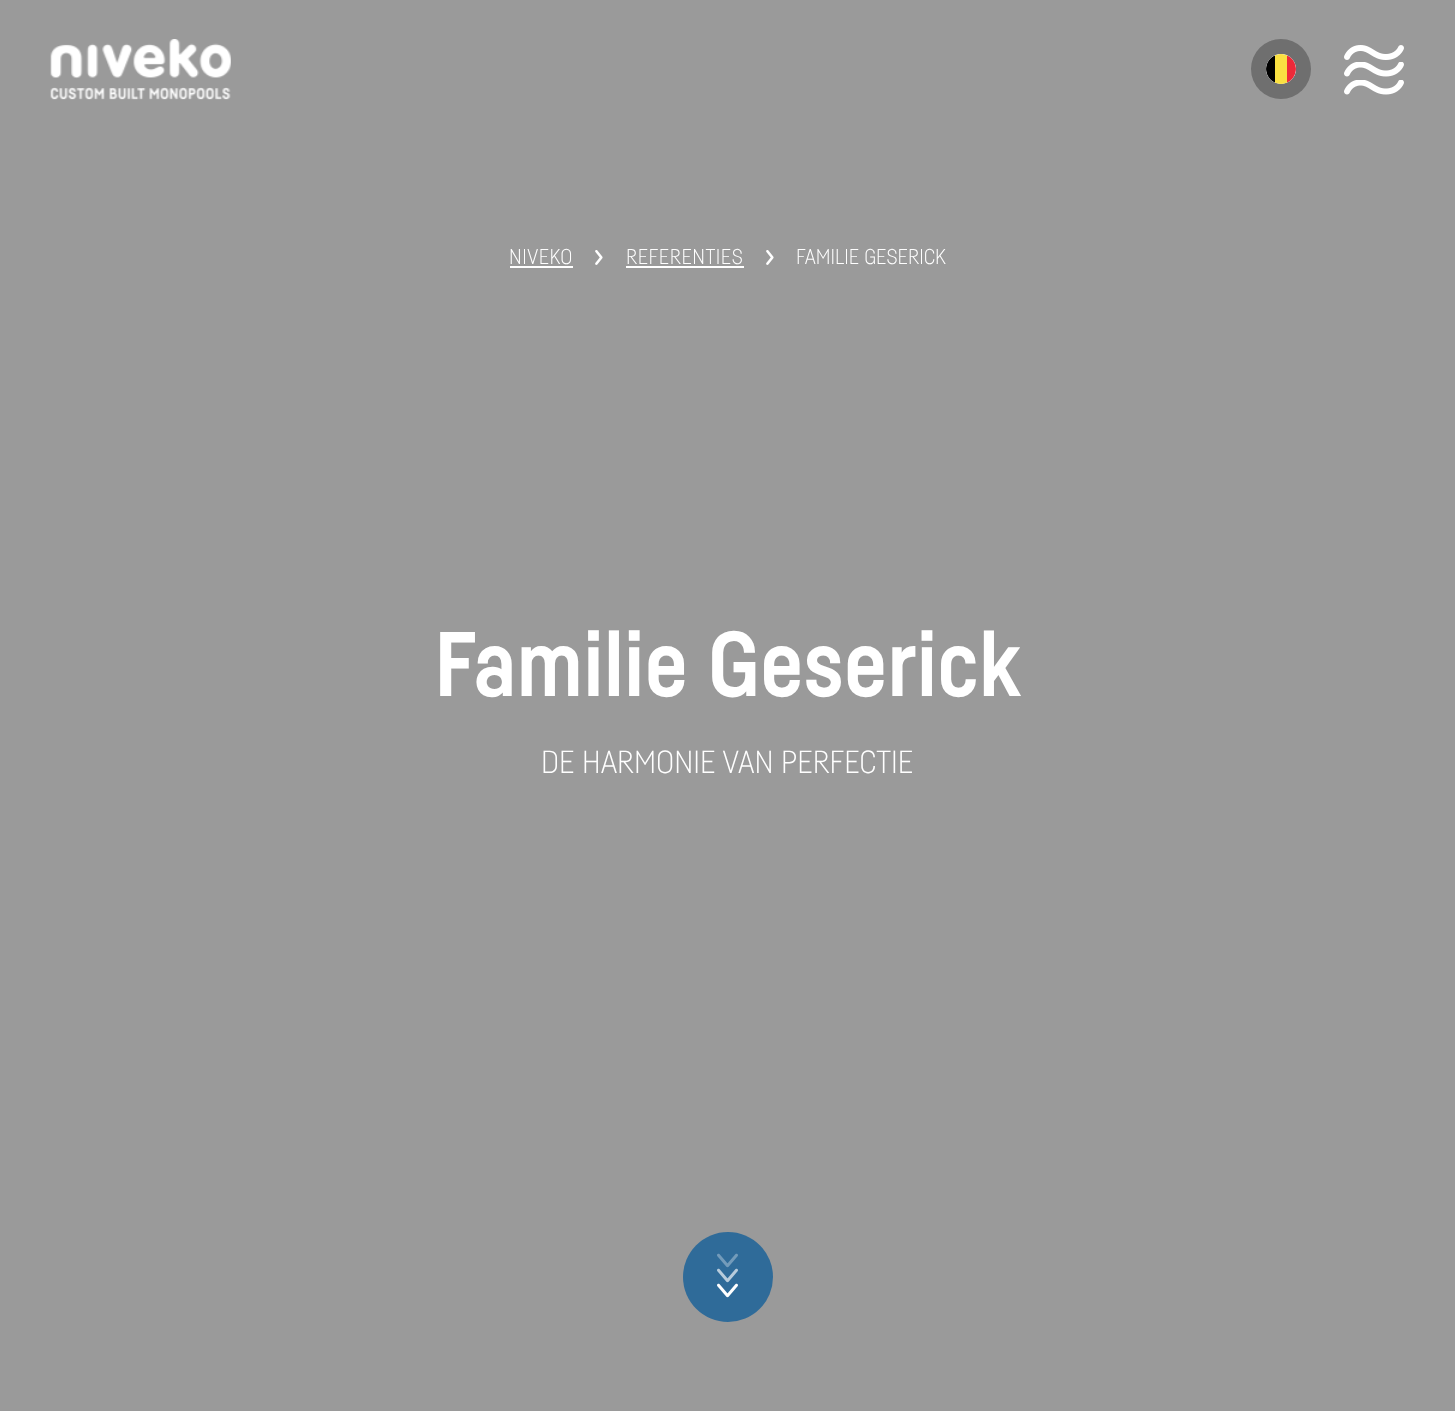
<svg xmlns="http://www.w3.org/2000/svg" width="1455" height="1411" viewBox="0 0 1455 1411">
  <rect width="100%" height="100%" fill="rgb(154,154,154)"/>
  <image x="50" y="39" width="181" height="61" href="pic1.png"/>
  <circle cx="1281" cy="69" r="30" fill="rgb(111,111,111)"/>
  <circle cx="1281" cy="69" r="15" fill="rgb(255,255,255)"/>
  <image x="1266" y="54" width="30" height="30" href="pic2.png"/>
  <image x="1344" y="45" width="60" height="15" href="pic3.png"/>
  <image x="1344" y="62" width="60" height="15" href="pic4.png"/>
  <image x="1344" y="80" width="60" height="15" href="pic4.png"/>
  <text x="509" y="264" font-family="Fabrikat" font-size="21" font-weight="300" letter-spacing="0.5" fill="rgb(255,255,255)">NIVEKO</text>
  <rect x="510" y="266" width="63" height="2" fill="rgb(255,255,255)"/>
  <image x="595" y="250" width="8" height="15" href="pic5.png"/>
  <text x="626" y="264" font-family="Fabrikat" font-size="21" font-weight="300" letter-spacing="0.5" fill="rgb(255,255,255)">REFERENTIES</text>
  <rect x="626" y="266" width="118" height="2" fill="rgb(255,255,255)"/>
  <image x="766" y="250" width="8" height="15" href="pic5.png"/>
  <text x="796" y="264" font-family="Fabrikat" font-size="21" font-weight="300" fill="rgb(255,255,255)">FAMILIE GESERICK</text>
  <text x="434" y="696" font-family="Fabrikat" font-size="90" font-weight="bold" fill="rgb(255,255,255)">Familie Geserick</text>
  <text x="541" y="773" font-family="Fabrikat" font-size="31.5" font-weight="300" fill="rgb(255,255,255)">DE HARMONIE VAN PERFECTIE</text>
  <circle cx="728" cy="1277" r="45" fill="rgb(47,107,153)"/>
  <image x="717" y="1253" width="21" height="15" href="pic6.png"/>
  <image x="717" y="1268" width="21" height="15" href="pic7.png"/>
  <image x="717" y="1283" width="21" height="15" href="pic8.png"/>
</svg>
